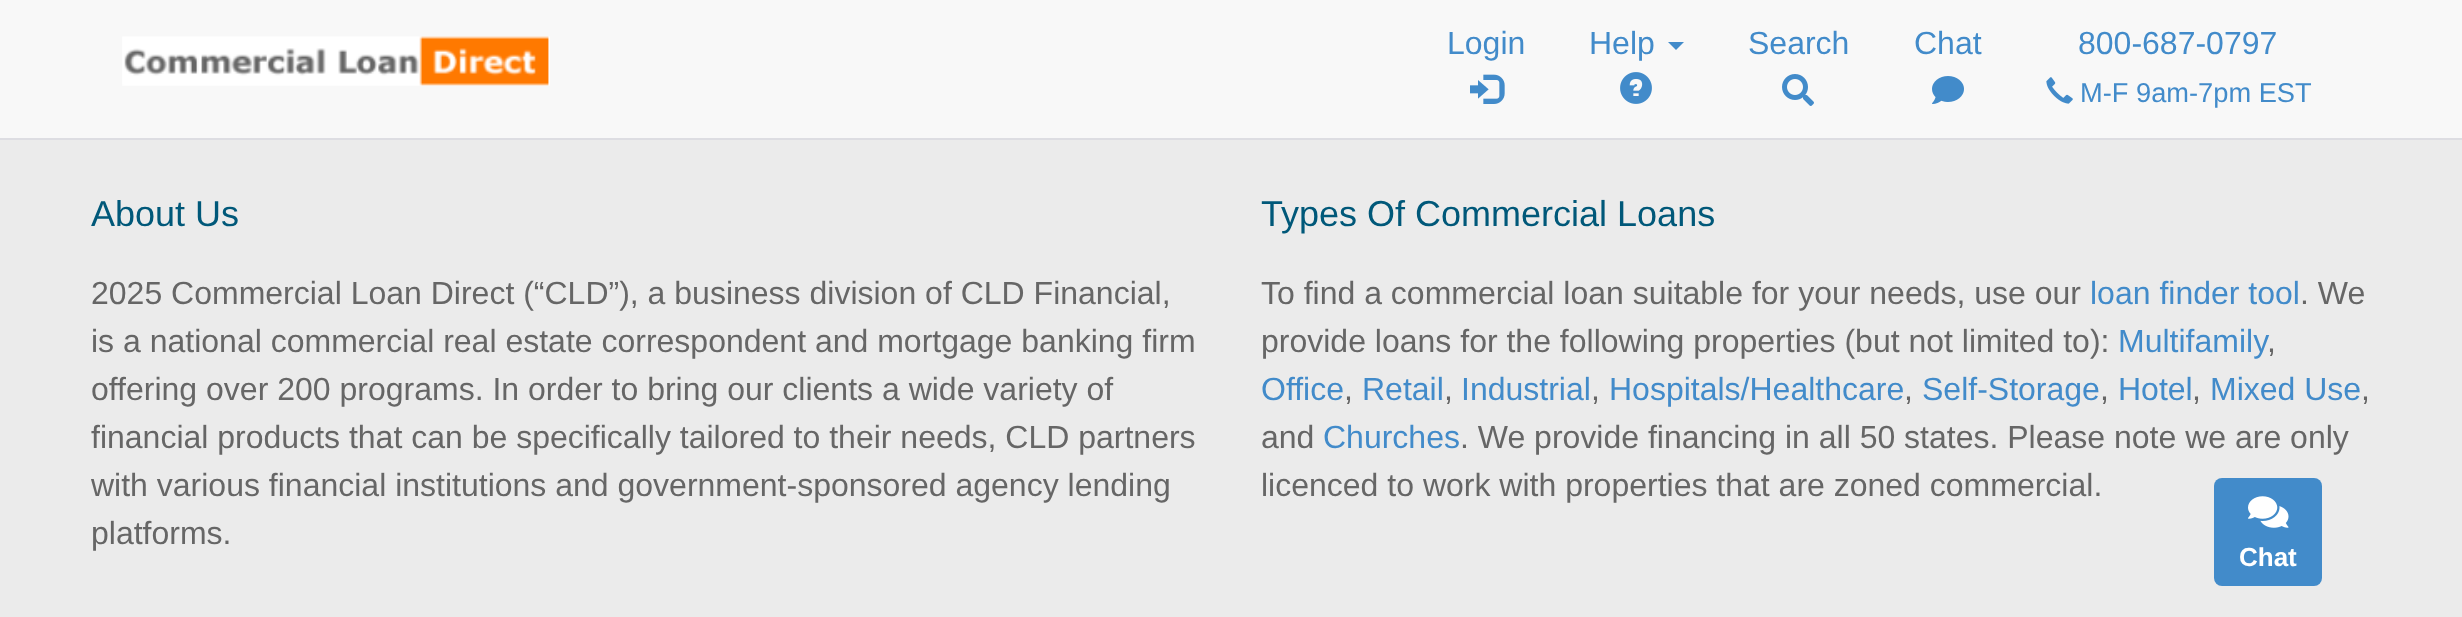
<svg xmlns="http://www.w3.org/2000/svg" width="2462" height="617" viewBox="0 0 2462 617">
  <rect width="100%" height="100%" fill="rgb(235,235,235)"/>
  <rect x="0" y="0" width="2462" height="138" fill="rgb(248,248,248)"/>
  <rect x="0" y="138" width="2462" height="2" fill="rgb(221,221,226)"/>
  <image x="122" y="36" width="428" height="50" href="pic1.png"/>
  <text x="1447" y="54" font-family="Liberation Sans" font-size="32" fill="rgb(66,139,202)">Login</text>
  <image x="1470" y="74" width="35" height="30" href="pic2.png"/>
  <text x="1589" y="54" font-family="Liberation Sans" font-size="32" fill="rgb(66,139,202)">Help</text>
  <path d="M1668 42H1684L1676 50Z" fill="rgb(66,139,202)"/>
  <image x="1620" y="72" width="32" height="32" href="pic3.png"/>
  <text x="1748" y="54" font-family="Liberation Sans" font-size="32" fill="rgb(66,139,202)">Search</text>
  <image x="1782" y="74" width="32" height="32" href="pic4.png"/>
  <text x="1914" y="54" font-family="Liberation Sans" font-size="32" fill="rgb(66,139,202)">Chat</text>
  <image x="1932" y="76" width="32" height="28" href="pic5.png"/>
  <text x="2078" y="54" font-family="Liberation Sans" font-size="32" fill="rgb(66,139,202)">800-687-0797</text>
  <image x="2046" y="77" width="27" height="27" href="pic6.png"/>
  <text x="2080" y="102" font-family="Liberation Sans" font-size="27.25" fill="rgb(66,139,202)">M-F 9am-7pm EST</text>
  <text x="91" y="226" font-family="Liberation Sans" font-size="36" fill="rgb(0,88,121)">About Us</text>
  <g font-family="Liberation Sans" font-size="32" fill="rgb(102,102,102)">
    <text>
      <tspan x="91" y="304">2025 Commercial Loan Direct (“CLD”), a business division of CLD Financial,</tspan>
      <tspan x="91" y="352">is a national commercial real estate correspondent and mortgage banking firm</tspan>
      <tspan x="91" y="400">offering over 200 programs. In order to bring our clients a wide variety of</tspan>
      <tspan x="91" y="448">financial products that can be specifically tailored to their needs, CLD partners</tspan>
      <tspan x="91" y="496">with various financial institutions and government-sponsored agency lending</tspan>
      <tspan x="91" y="544">platforms.</tspan>
    </text>
  </g>
  <text x="1261" y="226" font-family="Liberation Sans" font-size="36" fill="rgb(0,88,121)">Types Of Commercial Loans</text>
  <text x="1261" y="304" font-family="Liberation Sans" font-size="32" fill="rgb(102,102,102)">To find a commercial loan suitable for your needs, use our</text>
  <text x="2090" y="304" font-family="Liberation Sans" font-size="32" fill="rgb(66,139,202)">loan finder tool</text>
  <g font-family="Liberation Sans" font-size="32" fill="rgb(102,102,102)">
    <text x="2300" y="304">. We</text>
    <text x="1261" y="352">provide loans for the following properties (but not limited to):</text>
  </g>
  <text x="2118" y="352" font-family="Liberation Sans" font-size="32" fill="rgb(66,139,202)">Multifamily</text>
  <text x="2267" y="352" font-family="Liberation Sans" font-size="32" fill="rgb(102,102,102)">,</text>
  <text x="1261" y="400" font-family="Liberation Sans" font-size="32" fill="rgb(66,139,202)">Office</text>
  <text x="1344" y="400" font-family="Liberation Sans" font-size="32" fill="rgb(102,102,102)">,</text>
  <text x="1362" y="400" font-family="Liberation Sans" font-size="32" fill="rgb(66,139,202)">Retail</text>
  <text x="1444" y="400" font-family="Liberation Sans" font-size="32" fill="rgb(102,102,102)">,</text>
  <text x="1461" y="400" font-family="Liberation Sans" font-size="32" fill="rgb(66,139,202)">Industrial</text>
  <text x="1591" y="400" font-family="Liberation Sans" font-size="32" fill="rgb(102,102,102)">,</text>
  <text x="1609" y="400" font-family="Liberation Sans" font-size="32" fill="rgb(66,139,202)">Hospitals/Healthcare</text>
  <text x="1904" y="400" font-family="Liberation Sans" font-size="32" fill="rgb(102,102,102)">,</text>
  <text x="1922" y="400" font-family="Liberation Sans" font-size="32" fill="rgb(66,139,202)">Self-Storage</text>
  <text x="2100" y="400" font-family="Liberation Sans" font-size="32" fill="rgb(102,102,102)">,</text>
  <text x="2118" y="400" font-family="Liberation Sans" font-size="32" fill="rgb(66,139,202)">Hotel</text>
  <text x="2192" y="400" font-family="Liberation Sans" font-size="32" fill="rgb(102,102,102)">,</text>
  <text x="2210" y="400" font-family="Liberation Sans" font-size="32" fill="rgb(66,139,202)">Mixed Use</text>
  <g font-family="Liberation Sans" font-size="32" fill="rgb(102,102,102)">
    <text x="2361" y="400">,</text>
    <text x="1261" y="448">and</text>
  </g>
  <text x="1323" y="448" font-family="Liberation Sans" font-size="32" fill="rgb(66,139,202)">Churches</text>
  <g font-family="Liberation Sans" font-size="32" fill="rgb(102,102,102)">
    <text x="1460" y="448">. We provide financing in all 50 states. Please note we are only</text>
    <text x="1261" y="496">licenced to work with properties that are zoned commercial.</text>
  </g>
  <rect x="2214" y="478" width="108" height="108" rx="8" fill="rgb(66,139,202)"/>
  <image x="2248" y="496" width="41" height="32" href="pic7.png"/>
  <text x="2239" y="566" font-family="Liberation Sans" font-size="26" font-weight="bold" fill="rgb(255,255,255)">Chat</text>
</svg>
